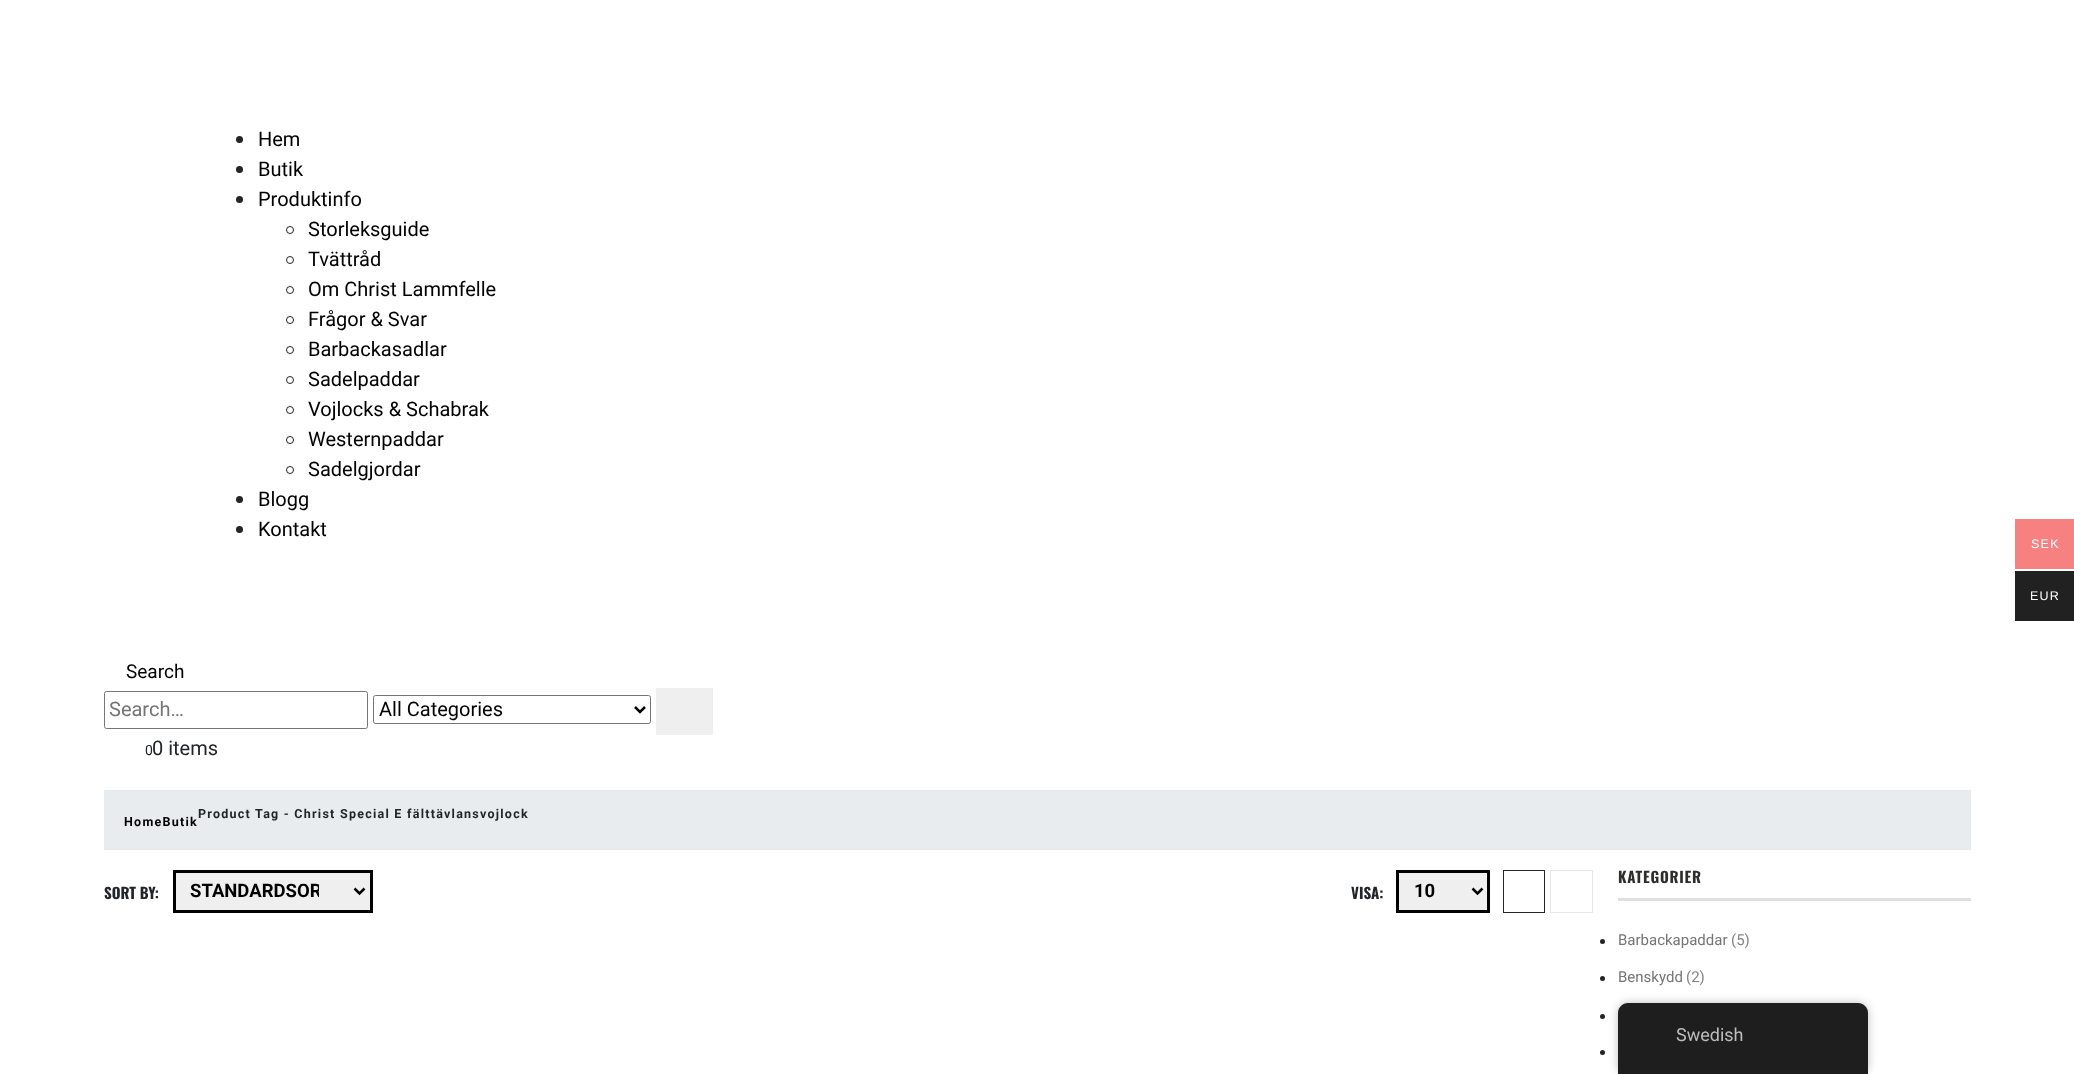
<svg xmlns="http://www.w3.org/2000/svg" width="2074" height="1074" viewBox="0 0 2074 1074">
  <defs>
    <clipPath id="clip1"><rect x="190" y="879" width="129" height="25"/></clipPath>
  </defs>
  <rect width="100%" height="100%" fill="rgb(255,255,255)"/>
  <circle cx="239.5" cy="139.5" r="3.5" fill="rgb(33,37,41)"/>
  <text x="258" y="146" font-family="Roboto" font-size="20" fill="rgb(0,0,0)">Hem</text>
  <circle cx="239.5" cy="169.5" r="3.5" fill="rgb(33,37,41)"/>
  <text x="258" y="176" font-family="Roboto" font-size="20" fill="rgb(0,0,0)">Butik</text>
  <circle cx="239.5" cy="199.5" r="3.5" fill="rgb(33,37,41)"/>
  <text x="258" y="206" font-family="Roboto" font-size="20" fill="rgb(0,0,0)">Produktinfo</text>
  <circle cx="290" cy="230" r="3.5" fill="none" stroke="rgb(33,37,41)"/>
  <text x="308" y="236" font-family="Roboto" font-size="20" fill="rgb(0,0,0)">Storleksguide</text>
  <circle cx="290" cy="260" r="3.5" fill="none" stroke="rgb(33,37,41)"/>
  <text x="308" y="266" font-family="Roboto" font-size="20" fill="rgb(0,0,0)">Tvättråd</text>
  <circle cx="290" cy="290" r="3.5" fill="none" stroke="rgb(33,37,41)"/>
  <text x="308" y="296" font-family="Roboto" font-size="20" fill="rgb(0,0,0)">Om Christ Lammfelle</text>
  <circle cx="290" cy="320" r="3.5" fill="none" stroke="rgb(33,37,41)"/>
  <text x="308" y="326" font-family="Roboto" font-size="20" fill="rgb(0,0,0)">Frågor &amp; Svar</text>
  <circle cx="290" cy="350" r="3.5" fill="none" stroke="rgb(33,37,41)"/>
  <text x="308" y="356" font-family="Roboto" font-size="20" fill="rgb(0,0,0)">Barbackasadlar</text>
  <circle cx="290" cy="380" r="3.5" fill="none" stroke="rgb(33,37,41)"/>
  <text x="308" y="386" font-family="Roboto" font-size="20" fill="rgb(0,0,0)">Sadelpaddar</text>
  <circle cx="290" cy="410" r="3.5" fill="none" stroke="rgb(33,37,41)"/>
  <text x="308" y="416" font-family="Roboto" font-size="20" fill="rgb(0,0,0)">Vojlocks &amp; Schabrak</text>
  <circle cx="290" cy="440" r="3.5" fill="none" stroke="rgb(33,37,41)"/>
  <text x="308" y="446" font-family="Roboto" font-size="20" fill="rgb(0,0,0)">Westernpaddar</text>
  <circle cx="290" cy="470" r="3.5" fill="none" stroke="rgb(33,37,41)"/>
  <text x="308" y="476" font-family="Roboto" font-size="20" fill="rgb(0,0,0)">Sadelgjordar</text>
  <circle cx="239.5" cy="499.5" r="3.5" fill="rgb(33,37,41)"/>
  <text x="258" y="506" font-family="Roboto" font-size="20" fill="rgb(0,0,0)">Blogg</text>
  <circle cx="239.5" cy="529.5" r="3.5" fill="rgb(33,37,41)"/>
  <text x="258" y="536" font-family="Roboto" font-size="20" fill="rgb(0,0,0)">Kontakt</text>
  <text x="126" y="678" font-family="Roboto" font-size="19" fill="rgb(0,0,0)">Search</text>
  <rect x="104.5" y="691.5" width="263" height="37" rx="2" fill="none" stroke="rgb(118,118,118)"/>
  <text x="109" y="716" font-family="Roboto" font-size="20" fill="rgb(117,117,117)">Search…</text>
  <rect x="373.5" y="695.5" width="277" height="28" rx="2" fill="none" stroke="rgb(118,118,118)"/>
  <path d="M635 707L640 712L645 707" fill="none" stroke="rgb(0,0,0)" stroke-width="2.5"/>
  <text x="379" y="716" font-family="Roboto" font-size="20" fill="rgb(0,0,0)">All Categories</text>
  <rect x="656" y="688" width="57" height="47" fill="rgb(239,239,239)"/>
  <text x="145" y="755" font-family="Roboto" font-size="14" fill="rgb(33,37,41)">0</text>
  <text x="152" y="755" font-family="Roboto" font-size="20" fill="rgb(33,37,41)">0 items</text>
  <rect x="104" y="790" width="1867" height="60" fill="rgb(233,236,239)"/>
  <text x="124" y="826" font-family="Roboto" font-size="12.5" font-weight="bold" letter-spacing="1.25" fill="rgb(0,0,0)">HomeButik</text>
  <text x="198" y="818" font-family="Roboto" font-size="12.5" font-weight="bold" letter-spacing="1.25" fill="rgb(33,37,41)">Product Tag - Christ Special E fälttävlansvojlock</text>
  <text x="104" y="899" font-family="Oswald" font-size="15" font-weight="bold" fill="rgb(33,37,41)">SORT BY:</text>
  <rect x="174.5" y="871.5" width="197" height="40" fill="rgb(239,239,239)" stroke="rgb(0,0,0)" stroke-width="3"/>
  <path d="M354.5 888.5L359.5 893.5L364.5 888.5" fill="none" stroke="rgb(0,0,0)" stroke-width="2.5"/>
  <g clip-path="url(#clip1)">
    <text x="190" y="897" font-family="Roboto" font-size="18.5" font-weight="bold" fill="rgb(0,0,0)">STANDARDSOR</text>
  </g>
  <text x="1351" y="899" font-family="Oswald" font-size="15" font-weight="bold" fill="rgb(33,37,41)">VISA:</text>
  <rect x="1397.5" y="871.5" width="91" height="40" fill="rgb(239,239,239)" stroke="rgb(0,0,0)" stroke-width="3"/>
  <path d="M1472.5 888.5L1477.5 893.5L1482.5 888.5" fill="none" stroke="rgb(0,0,0)" stroke-width="2.5"/>
  <text x="1414" y="897" font-family="Roboto" font-size="18.5" font-weight="bold" fill="rgb(0,0,0)">10</text>
  <rect x="1503.5" y="870.5" width="41" height="42" fill="none" stroke="rgb(34,37,41)"/>
  <rect x="1550.5" y="870.5" width="42" height="42" fill="none" stroke="rgb(231,231,231)"/>
  <rect x="1618" y="898" width="353" height="3" fill="rgb(223,223,223)"/>
  <text x="1618" y="883" font-family="Oswald" font-size="15" font-weight="bold" letter-spacing="0.75" fill="rgb(48,46,42)">KATEGORIER</text>
  <circle cx="1602.5" cy="941.5" r="2.5" fill="rgb(33,37,41)"/>
  <text x="1618" y="945" font-family="Roboto" font-size="15" fill="rgb(117,117,117)">Barbackapaddar</text>
  <text x="1731" y="945" font-family="Roboto" font-size="15" fill="rgb(132,132,132)">(5)</text>
  <circle cx="1602.5" cy="978.5" r="2.5" fill="rgb(33,37,41)"/>
  <text x="1618" y="982" font-family="Roboto" font-size="15" fill="rgb(117,117,117)">Benskydd</text>
  <text x="1686" y="982" font-family="Roboto" font-size="15" fill="rgb(132,132,132)">(2)</text>
  <circle cx="1602.5" cy="1016.5" r="2.5" fill="rgb(33,37,41)"/>
  <circle cx="1602.5" cy="1052.5" r="2.5" fill="rgb(33,37,41)"/>
  <rect x="2015" y="519" width="59" height="50" fill="rgb(247,128,128)"/>
  <text x="2031" y="548" font-family="Liberation Sans" font-size="12.5" letter-spacing="1.25" fill="rgb(255,255,255)">SEK</text>
  <rect x="2015" y="571" width="59" height="50" fill="rgb(33,33,33)"/>
  <text x="2030" y="600" font-family="Liberation Sans" font-size="12.5" letter-spacing="1.25" fill="rgb(255,255,255)">EUR</text>
  <rect x="1618" y="1003" width="250" height="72" rx="10" fill="rgba(0,0,0,0.25)" filter="blur(5px)"/>
  <path d="M1628 1003H1858C1863.5 1003 1868 1007.5 1868 1013V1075H1618V1013C1618 1007.5 1622.5 1003 1628 1003Z" fill="rgb(30,30,30)"/>
  <text x="1676" y="1041" font-family="Roboto" font-size="18" fill="rgb(189,189,189)">Swedish</text>
</svg>
